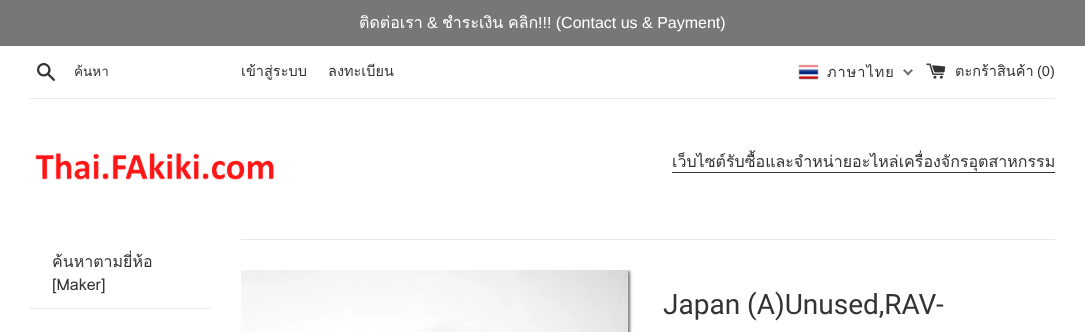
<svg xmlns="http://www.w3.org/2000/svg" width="1085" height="332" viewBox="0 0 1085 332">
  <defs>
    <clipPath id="clip1"><rect x="74" y="60" width="155" height="22"/></clipPath>
  </defs>
  <rect width="100%" height="100%" fill="rgb(255,255,255)"/>
  <rect x="0" y="0" width="1085" height="46" fill="rgb(119,119,119)"/>
  <text x="359" y="28" font-family="Loma" font-size="16" fill="rgb(255,255,255)">ติดต่อเรา</text>
  <text x="427" y="28" font-family="Liberation Sans" font-size="16" fill="rgb(255,255,255)">&amp;</text>
  <g font-family="Loma" font-size="16" fill="rgb(255,255,255)">
    <text x="442" y="28">ชำระเงิน</text>
    <text x="508" y="28">คลิก</text>
  </g>
  <text x="538" y="28" font-family="Liberation Sans" font-size="16" fill="rgb(255,255,255)">!!! (Contact us &amp; Payment)</text>
  <image x="37" y="63" width="18" height="18" href="pic1.png"/>
  <g clip-path="url(#clip1)">
    <text x="74" y="76" font-family="Loma" font-size="13.5" fill="rgb(51,51,51)">ค้นหา</text>
  </g>
  <g font-family="Loma" font-size="14.5" fill="rgb(51,51,51)">
    <text x="241" y="76">เข้าสู่ระบบ</text>
    <text x="328" y="76">ลงทะเบียน</text>
  </g>
  <image x="798" y="64" width="21" height="16" href="pic2.png"/>
  <text x="827" y="77" font-family="Loma" font-size="14.5" letter-spacing="1" fill="rgb(51,51,51)">ภาษาไทย</text>
  <path d="M911.5 69L913 70.5L908 75.5L906.5 74Z" fill="rgb(116,116,116)"/>
  <path d="M904.5 69L909.5 74L908 75.5L903 70.5Z" fill="rgb(116,116,116)"/>
  <image x="926" y="63" width="20" height="16" href="pic3.png"/>
  <text x="955" y="76" font-family="Loma" font-size="14.5" fill="rgb(51,51,51)">ตะกร้าสินค้า</text>
  <text x="1037" y="76" font-family="Liberation Sans" font-size="14.5" fill="rgb(51,51,51)">(0)</text>
  <rect x="30" y="98" width="1025" height="1" fill="rgb(232,232,232)"/>
  <image x="35" y="153" width="239" height="27" href="pic4.png"/>
  <text x="672" y="167" font-family="Loma" font-size="16" fill="rgb(51,51,51)">เว็บไซต์รับซื้อและจำหน่ายอะไหล่เครื่องจักรอุตสาหกรรม</text>
  <rect x="672" y="172" width="383" height="1" fill="rgb(51,51,51)"/>
  <rect x="30" y="308" width="181" height="1" fill="rgb(232,232,232)"/>
  <g font-family="Loma" font-size="16" fill="rgb(51,51,51)">
    <text>
      <tspan x="52" y="267">ค้นหาตามยี่ห้อ</tspan>
      <tspan x="52" y="290">[Maker]</tspan>
    </text>
  </g>
  <rect x="241" y="239" width="814" height="1" fill="rgb(232,232,232)"/>
  <image x="241" y="270" width="392" height="62" href="pic5.png"/>
  <text x="663" y="314" font-family="Roboto" font-size="28" fill="rgb(51,51,51)">Japan (A)Unused,RAV-</text>
</svg>
